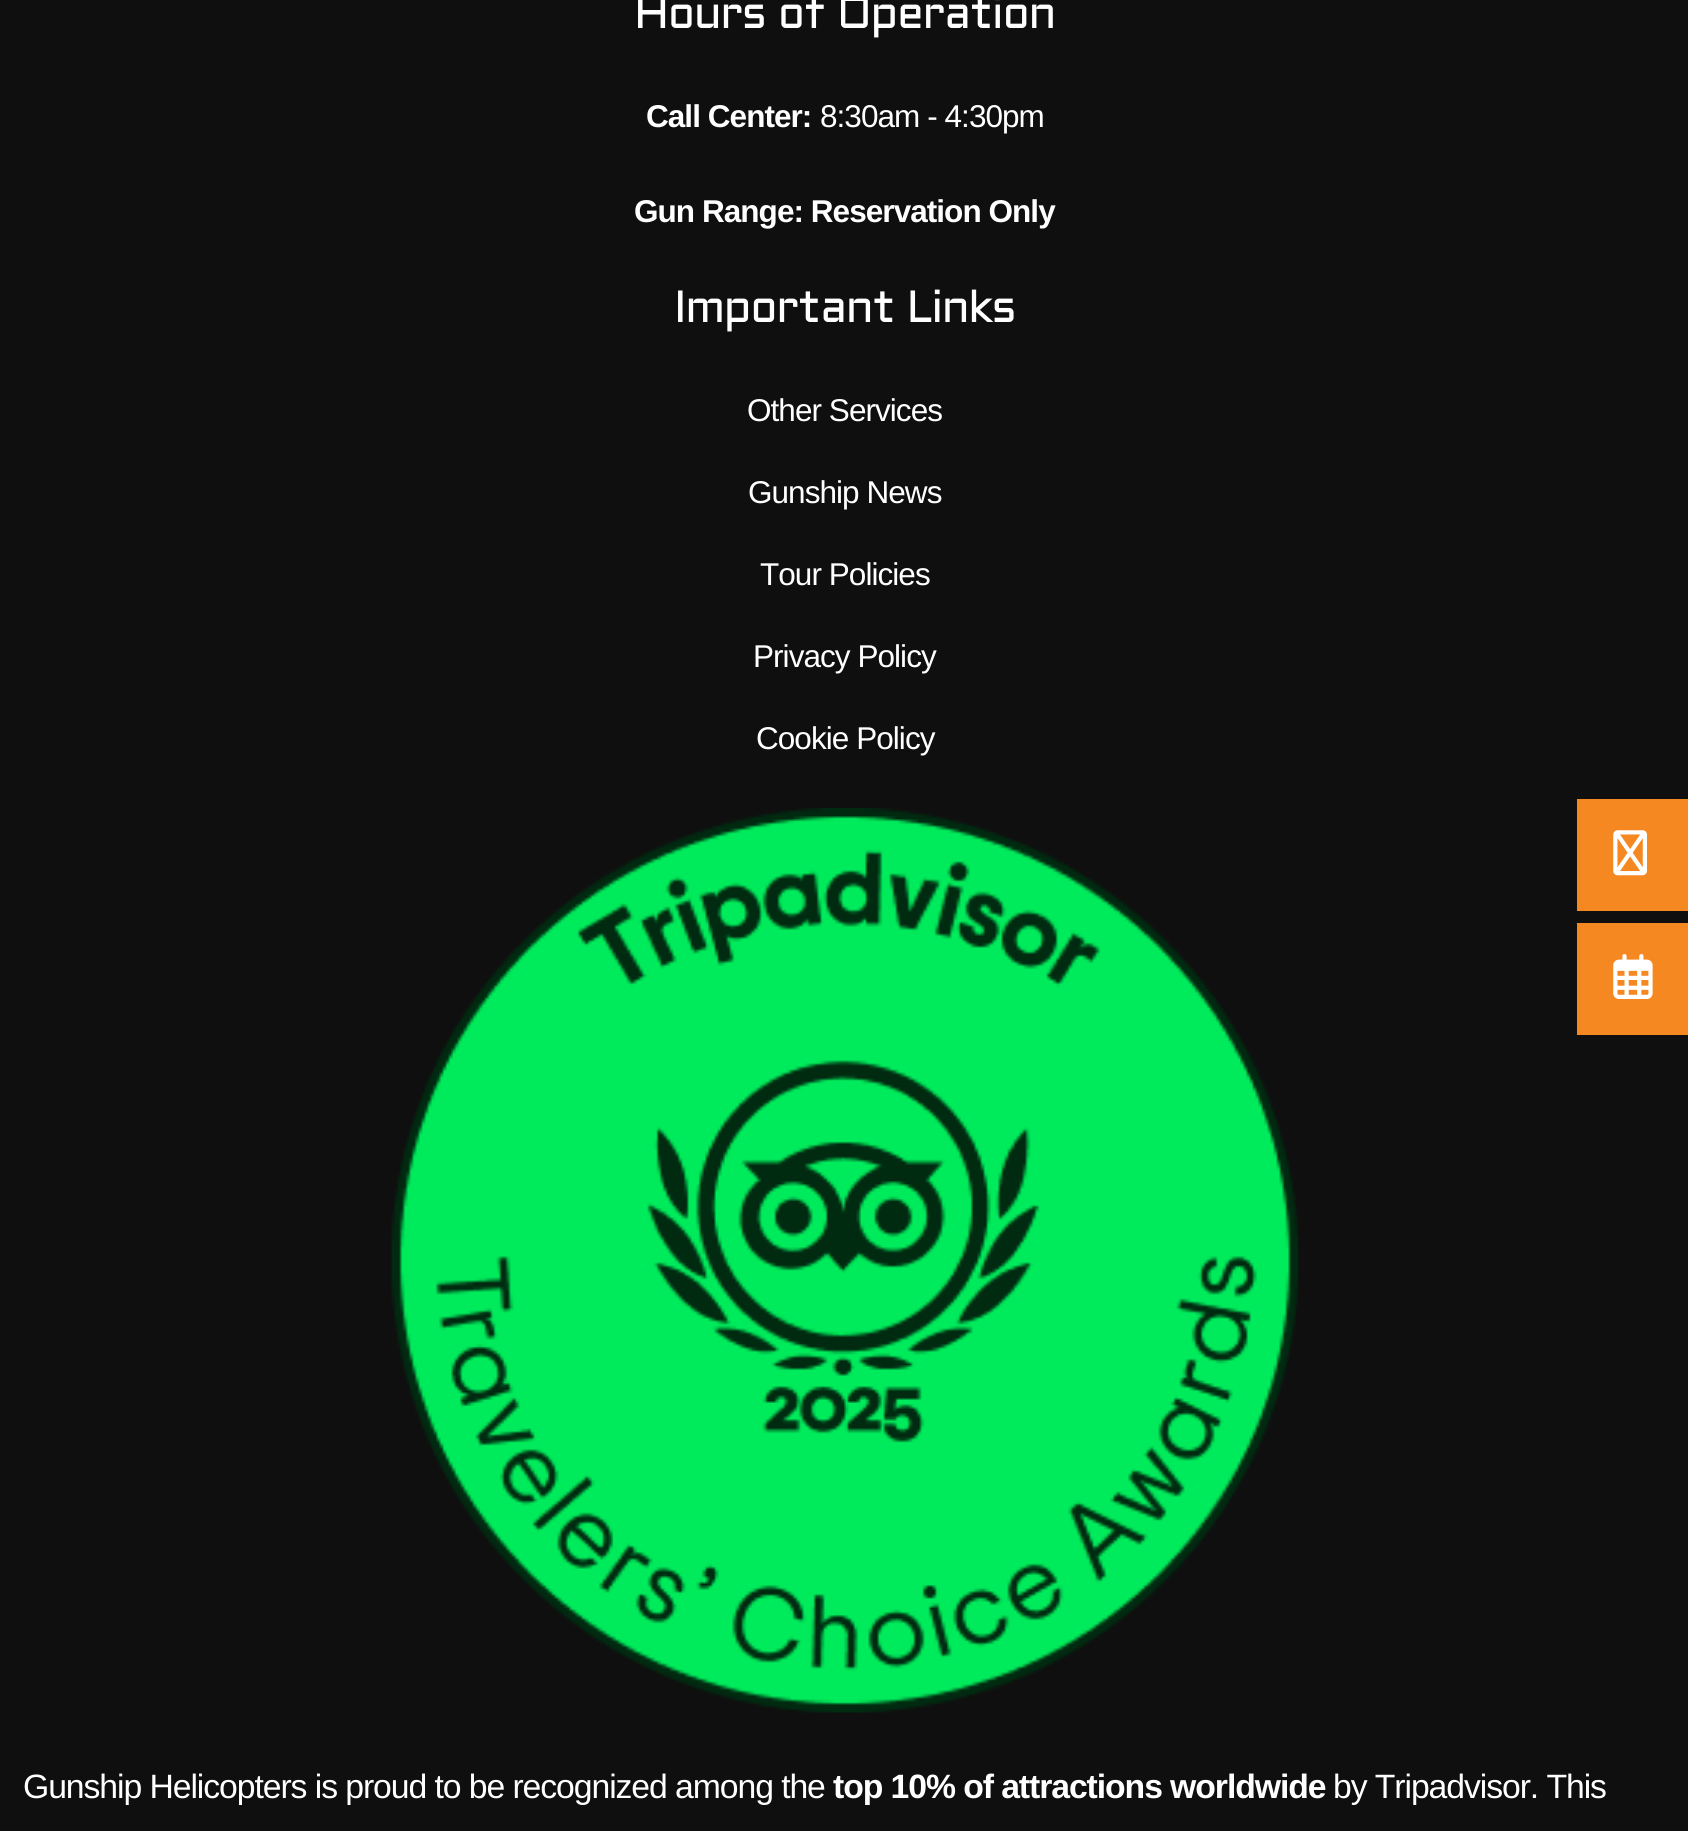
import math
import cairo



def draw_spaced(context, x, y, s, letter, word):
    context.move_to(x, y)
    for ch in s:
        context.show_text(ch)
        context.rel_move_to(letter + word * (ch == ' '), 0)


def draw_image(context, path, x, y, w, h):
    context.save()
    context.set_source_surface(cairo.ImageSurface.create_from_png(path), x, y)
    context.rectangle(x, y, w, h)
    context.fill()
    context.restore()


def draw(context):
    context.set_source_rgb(15 / 255, 15 / 255, 15 / 255)
    context.paint()
    draw_image(context, "images/1.png", 391, 808, 908, 905)
    context.set_source_rgb(246 / 255, 136 / 255, 33 / 255)
    context.rectangle(1577, 799, 111, 112)
    context.fill()
    draw_image(context, "images/2.png", 1613, 830, 34, 46)
    context.rectangle(1577, 923, 111, 112)
    context.fill()
    draw_image(context, "images/3.png", 1613, 954, 40, 45)
    context.select_font_face("Aldrich")
    context.set_font_size(45)
    context.set_source_rgb(1, 1, 1)
    draw_spaced(context, 634, 28, "Hours of Operation", -1.4, 0)
    context.select_font_face("Liberation Sans", cairo.FontSlant.NORMAL, cairo.FontWeight.BOLD)
    context.set_font_size(31.5)
    draw_spaced(context, 646, 127, "Call Center:", -0.95, 0)
    context.select_font_face("Liberation Sans")
    draw_spaced(context, 820, 127, "8:30am - 4:30pm", -0.95, 0)
    context.select_font_face("Liberation Sans", cairo.FontSlant.NORMAL, cairo.FontWeight.BOLD)
    draw_spaced(context, 634, 222, "Gun Range: Reservation Only", -0.95, 0)
    context.select_font_face("Aldrich")
    context.set_font_size(45)
    draw_spaced(context, 674, 322, "Important Links", -1.4, 0)
    context.select_font_face("Liberation Sans")
    context.set_font_size(31.5)
    draw_spaced(context, 747, 421, "Other Services", -0.95, 0)
    draw_spaced(context, 748, 503, "Gunship News", -0.95, 0)
    draw_spaced(context, 760, 585, "Tour Policies", -0.95, 0)
    draw_spaced(context, 753, 667, "Privacy Policy", -0.95, 0)
    draw_spaced(context, 756, 749, "Cookie Policy", -0.95, 0)
    context.set_font_size(33.75)
    draw_spaced(context, 23, 1798, "Gunship Helicopters is proud to be recognized among the", -1.08, 0)
    context.select_font_face("Liberation Sans", cairo.FontSlant.NORMAL, cairo.FontWeight.BOLD)
    draw_spaced(context, 833, 1798, "top 10% of attractions worldwide", -1.08, 0)
    context.select_font_face("Liberation Sans")
    draw_spaced(context, 1333, 1798, "by Tripadvisor. This", -1.08, 0)


surface = cairo.ImageSurface(cairo.Format.RGB24, 1688, 1831)
context = cairo.Context(surface)
options = cairo.FontOptions()
options.set_hint_metrics(cairo.HintMetrics.OFF)
options.set_hint_style(cairo.HintStyle.NONE)
context.set_font_options(options)
context.set_miter_limit(4)
draw(context)
surface.write_to_png("out.png")
